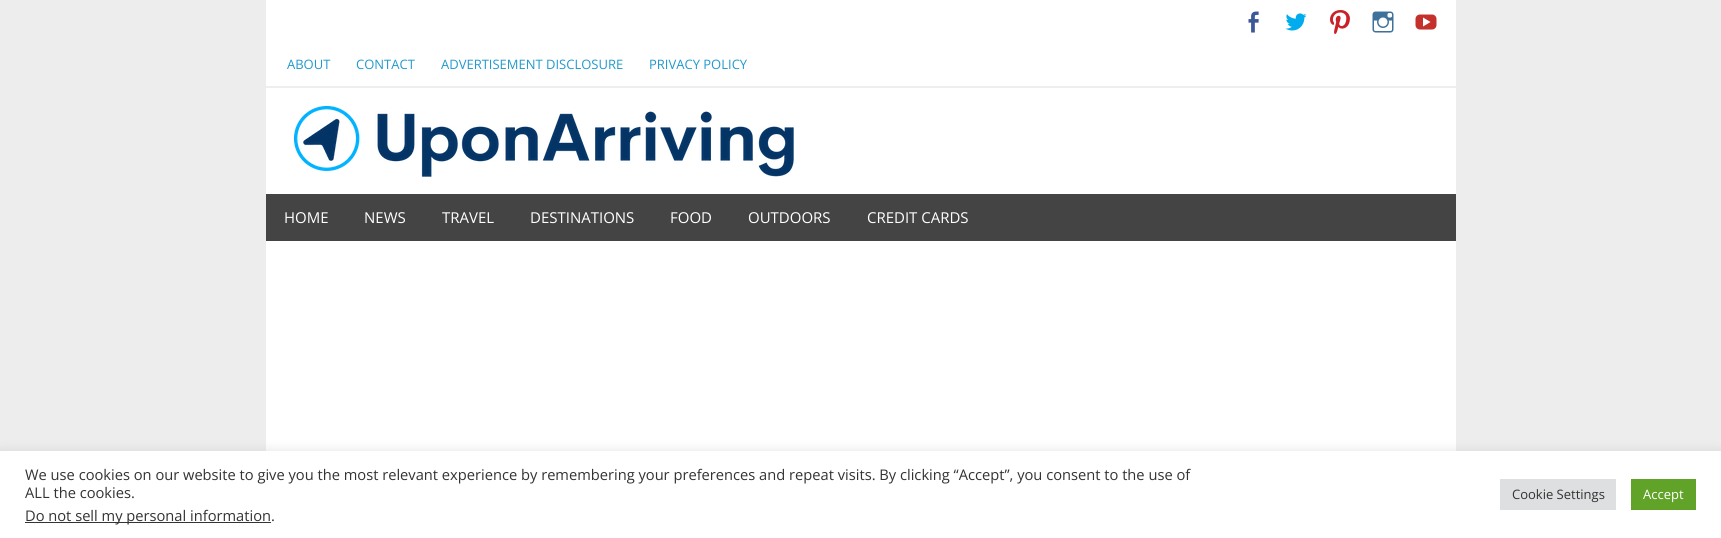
import math
import cairo



def rounded_rect(context, x, y, w, h, r):
    context.new_sub_path()
    for i, (u, v) in enumerate([(x + w - r, y + h - r), (x + r, y + h - r), (x + r, y + r), (x + w - r, y + r)]):
        context.arc(u, v, r, i * math.pi / 2, (i + 1) * math.pi / 2)
    context.close_path()


def draw_shadow(context, x, y, w, h, r, blur, alpha):
    context.push_group_with_content(cairo.Content.ALPHA)
    context.set_operator(cairo.Operator.SOURCE)
    for i in range(15, -16, -2):
        e = blur * i / 6
        if min(w, h) + 2 * e > 0:
            context.set_source_rgba(0, 0, 0, alpha * math.erfc((i - 1) / 8.5) / 2)
            rounded_rect(context, x - e, y - e, w + 2 * e, h + 2 * e, max(0, min(r + e + blur * .6, min(w, h) / 2 + e)))
            context.fill()
    context.mask(context.pop_group())


def draw_image(context, path, x, y, w, h):
    context.save()
    context.set_source_surface(cairo.ImageSurface.create_from_png(path), x, y)
    context.rectangle(x, y, w, h)
    context.fill()
    context.restore()


def draw(context):
    context.set_source_rgb(237 / 255, 237 / 255, 237 / 255)
    context.paint()
    context.set_source_rgb(1, 1, 1)
    context.rectangle(266, 0, 1190, 451)
    context.fill()
    context.set_source_rgb(238 / 255, 238 / 255, 238 / 255)
    context.rectangle(266, 86, 1190, 2)
    context.fill()
    draw_image(context, "images/1.png", 1248, 11, 11, 22)
    draw_image(context, "images/2.png", 1285, 13, 22, 18)
    draw_image(context, "images/3.png", 1330, 10, 20, 24)
    draw_image(context, "images/4.png", 1372, 11, 22, 22)
    draw_image(context, "images/5.png", 1415, 14, 22, 16)
    draw_image(context, "images/6.png", 294, 106, 500, 71)
    context.set_source_rgb(68 / 255, 68 / 255, 68 / 255)
    context.rectangle(266, 194, 1190, 47)
    context.fill()
    context.set_source_rgb(172 / 255, 171 / 255, 171 / 255)
    draw_shadow(context, 0, 450, 1721, 87, 0, 5, 0.3)
    context.set_source_rgb(1, 1, 1)
    context.rectangle(0, 451, 1721, 87)
    context.fill()
    context.set_source_rgb(51 / 255, 51 / 255, 51 / 255)
    context.rectangle(25, 522, 246, 1)
    context.fill()
    context.set_source_rgb(222 / 255, 223 / 255, 224 / 255)
    context.rectangle(1500, 479, 116, 31)
    context.fill()
    context.set_source_rgb(97 / 255, 162 / 255, 41 / 255)
    context.rectangle(1631, 479, 65, 31)
    context.fill()
    context.select_font_face("Open Sans")
    context.set_font_size(13)
    context.set_source_rgb(34 / 255, 153 / 255, 204 / 255)
    context.move_to(287, 69)
    context.show_text("ABOUT")
    context.move_to(356, 69)
    context.show_text("CONTACT")
    context.move_to(441, 69)
    context.show_text("ADVERTISEMENT DISCLOSURE")
    context.move_to(649, 69)
    context.show_text("PRIVACY POLICY")
    context.set_font_size(15)
    context.set_source_rgb(1, 1, 1)
    context.move_to(284, 223)
    context.show_text("HOME")
    context.move_to(364, 223)
    context.show_text("NEWS")
    context.move_to(442, 223)
    context.show_text("TRAVEL")
    context.move_to(530, 223)
    context.show_text("DESTINATIONS")
    context.move_to(670, 223)
    context.show_text("FOOD")
    context.move_to(748, 223)
    context.show_text("OUTDOORS")
    context.move_to(867, 223)
    context.show_text("CREDIT CARDS")
    context.set_font_size(14.67)
    context.set_source_rgb(51 / 255, 51 / 255, 51 / 255)
    context.move_to(25, 480)
    context.show_text("We use cookies on our website to give you the most relevant experience by remembering your preferences and repeat visits. By clicking “Accept”, you consent to the use of")
    context.move_to(25, 498)
    context.show_text("ALL the cookies.")
    context.move_to(25, 521)
    context.show_text("Do not sell my personal information.")
    context.set_font_size(13)
    context.move_to(1512, 499)
    context.show_text("Cookie Settings")
    context.set_source_rgb(1, 1, 1)
    context.move_to(1643, 499)
    context.show_text("Accept")


surface = cairo.ImageSurface(cairo.Format.RGB24, 1721, 538)
context = cairo.Context(surface)
options = cairo.FontOptions()
options.set_hint_metrics(cairo.HintMetrics.OFF)
options.set_hint_style(cairo.HintStyle.NONE)
context.set_font_options(options)
context.set_miter_limit(4)
draw(context)
surface.write_to_png("out.png")
